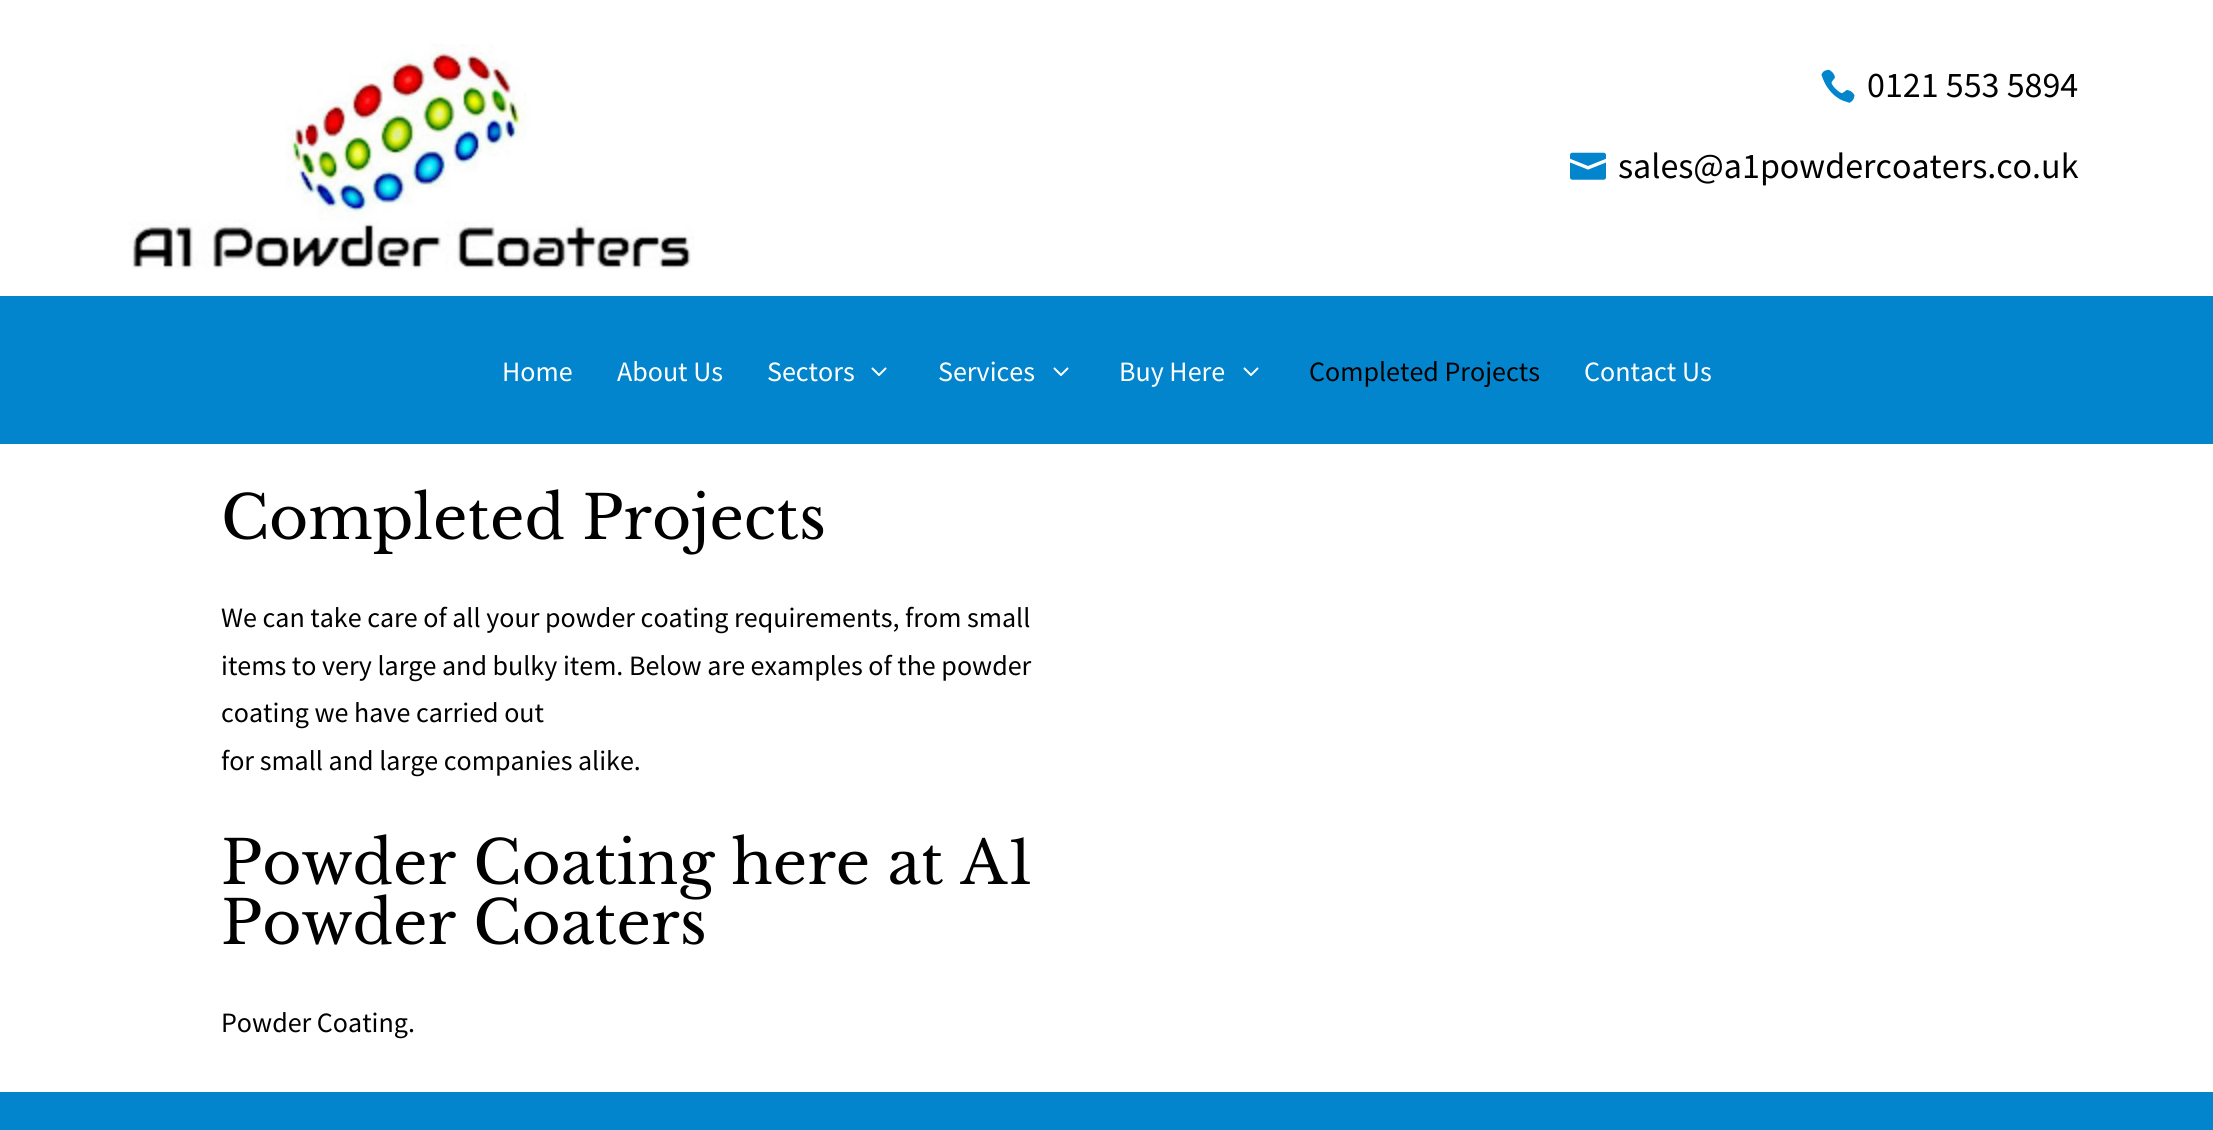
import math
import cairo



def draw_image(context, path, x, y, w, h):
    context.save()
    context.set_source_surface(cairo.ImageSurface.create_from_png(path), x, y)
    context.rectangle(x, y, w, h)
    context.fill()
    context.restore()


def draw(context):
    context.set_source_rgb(1, 1, 1)
    context.paint()
    draw_image(context, "images/1.png", 129, 44, 565, 225)
    draw_image(context, "images/2.png", 1821, 69, 34, 34)
    draw_image(context, "images/3.png", 1570, 152, 36, 28)
    context.set_source_rgb(3 / 255, 133 / 255, 206 / 255)
    context.rectangle(0, 296, 2213, 148)
    context.fill()
    draw_image(context, "images/4.png", 871, 367, 16, 9)
    draw_image(context, "images/4.png", 1053, 367, 16, 9)
    draw_image(context, "images/4.png", 1243, 367, 16, 9)
    context.rectangle(0, 1092, 2213, 38)
    context.fill()
    context.select_font_face("Source Sans Pro")
    context.set_font_size(36)
    context.set_source_rgb(0, 0, 0)
    context.move_to(1867, 97)
    context.show_text("0121 553 5894")
    context.move_to(1618, 178)
    context.show_text("sales@a1powdercoaters.co.uk")
    context.set_font_size(28)
    context.set_source_rgb(1, 1, 1)
    context.move_to(502, 381)
    context.show_text("Home")
    context.move_to(617, 381)
    context.show_text("About Us")
    context.move_to(767, 381)
    context.show_text("Sectors")
    context.move_to(938, 381)
    context.show_text("Services")
    context.move_to(1119, 381)
    context.show_text("Buy Here")
    context.set_source_rgb(0, 0, 0)
    context.move_to(1309, 381)
    context.show_text("Completed Projects")
    context.set_source_rgb(1, 1, 1)
    context.move_to(1584, 381)
    context.show_text("Contact Us")
    context.select_font_face("Libre Baskerville")
    context.set_font_size(60)
    context.set_source_rgb(0, 0, 0)
    context.move_to(221, 539)
    context.show_text("Completed Projects")
    context.select_font_face("Source Sans Pro")
    context.set_font_size(28)
    context.move_to(221, 627)
    context.show_text("We can take care of all your powder coating requirements, from small")
    context.move_to(221, 675)
    context.show_text("items to very large and bulky item. Below are examples of the powder")
    context.move_to(221, 722)
    context.show_text("coating we have carried out")
    context.move_to(221, 770)
    context.show_text("for small and large companies alike.")
    context.select_font_face("Libre Baskerville")
    context.set_font_size(60)
    context.move_to(221, 884)
    context.show_text("Powder Coating here at A1")
    context.move_to(221, 944)
    context.show_text("Powder Coaters")
    context.select_font_face("Source Sans Pro")
    context.set_font_size(28)
    context.move_to(221, 1032)
    context.show_text("Powder Coating.")


surface = cairo.ImageSurface(cairo.Format.RGB24, 2213, 1130)
context = cairo.Context(surface)
options = cairo.FontOptions()
options.set_hint_metrics(cairo.HintMetrics.OFF)
options.set_hint_style(cairo.HintStyle.NONE)
context.set_font_options(options)
context.set_miter_limit(4)
draw(context)
surface.write_to_png("out.png")
